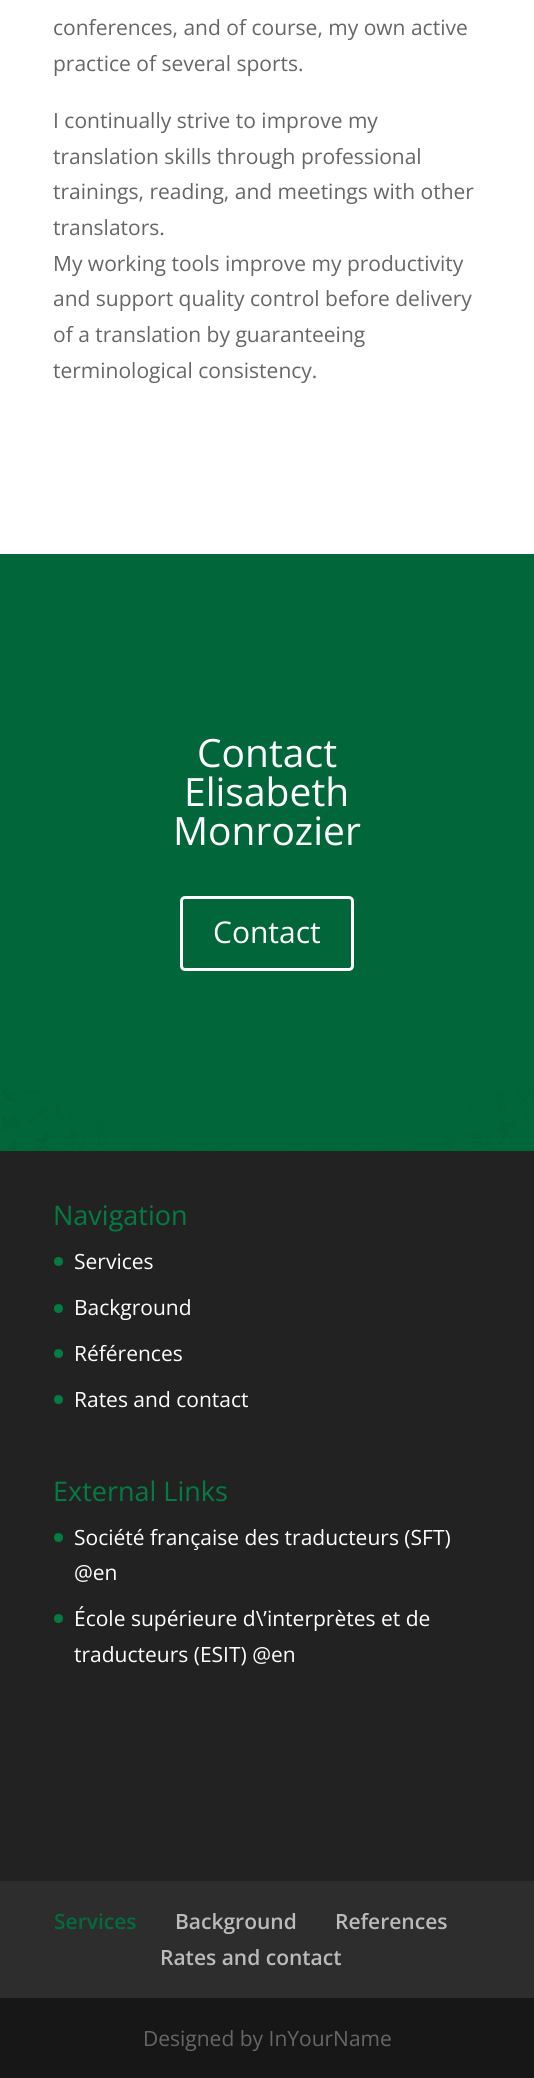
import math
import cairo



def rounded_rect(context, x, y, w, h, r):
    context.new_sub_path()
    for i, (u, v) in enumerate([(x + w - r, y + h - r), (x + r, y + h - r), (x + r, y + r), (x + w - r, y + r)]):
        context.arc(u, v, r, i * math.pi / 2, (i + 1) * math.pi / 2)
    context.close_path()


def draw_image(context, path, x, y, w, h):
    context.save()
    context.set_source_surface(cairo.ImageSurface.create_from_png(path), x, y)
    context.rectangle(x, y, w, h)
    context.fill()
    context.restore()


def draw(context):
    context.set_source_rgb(34 / 255, 34 / 255, 34 / 255)
    context.paint()
    context.set_source_rgb(1, 1, 1)
    context.rectangle(0, 0, 534, 554)
    context.fill()
    context.set_source_rgb(1 / 255, 102 / 255, 58 / 255)
    context.rectangle(0, 554, 534, 597)
    context.fill()
    draw_image(context, "images/1.png", 2, 1090, 531, 60)
    rounded_rect(context, 181.5, 897.5, 171, 72, 3.5)
    context.set_source_rgb(1, 1, 1)
    context.set_line_width(3)
    context.stroke()
    context.set_source_rgb(3 / 255, 124 / 255, 65 / 255)
    context.arc(58.5, 1261.5, 4.5, 0, 2 * math.pi)
    context.fill()
    context.arc(58.5, 1308.5, 4.5, 0, 2 * math.pi)
    context.fill()
    context.arc(58.5, 1353.5, 4.5, 0, 2 * math.pi)
    context.fill()
    context.arc(58.5, 1399.5, 4.5, 0, 2 * math.pi)
    context.fill()
    context.arc(58.5, 1537.5, 4.5, 0, 2 * math.pi)
    context.fill()
    context.arc(58.5, 1618.5, 4.5, 0, 2 * math.pi)
    context.fill()
    context.set_source_rgb(45 / 255, 45 / 255, 45 / 255)
    context.rectangle(0, 1881, 534, 117)
    context.fill()
    context.set_source_rgb(23 / 255, 23 / 255, 23 / 255)
    context.rectangle(0, 1998, 534, 80)
    context.fill()
    context.select_font_face("Open Sans")
    context.set_font_size(21)
    context.set_source_rgb(102 / 255, 102 / 255, 102 / 255)
    context.move_to(53, 35)
    context.show_text("conferences, and of course, my own active")
    context.move_to(53, 71)
    context.show_text("practice of several sports.")
    context.move_to(53, 128)
    context.show_text("I continually strive to improve my")
    context.move_to(53, 164)
    context.show_text("translation skills through professional")
    context.move_to(53, 199)
    context.show_text("trainings, reading, and meetings with other")
    context.move_to(53, 235)
    context.show_text("translators.")
    context.move_to(53, 271)
    context.show_text("My working tools improve my productivity")
    context.move_to(53, 306)
    context.show_text("and support quality control before delivery")
    context.move_to(53, 342)
    context.show_text("of a translation by guaranteeing")
    context.move_to(53, 378)
    context.show_text("terminological consistency.")
    context.set_font_size(39)
    context.set_source_rgb(1, 1, 1)
    context.move_to(197, 767)
    context.show_text("Contact")
    context.move_to(184, 806)
    context.show_text("Elisabeth")
    context.move_to(173, 845)
    context.show_text("Monrozier")
    context.set_font_size(30)
    context.move_to(213, 943)
    context.show_text("Contact")
    context.set_font_size(27)
    context.set_source_rgb(3 / 255, 124 / 255, 65 / 255)
    context.move_to(53, 1225)
    context.show_text("Navigation")
    context.set_font_size(21)
    context.set_source_rgb(1, 1, 1)
    context.move_to(74, 1269)
    context.show_text("Services")
    context.move_to(74, 1315)
    context.show_text("Background")
    context.move_to(74, 1361)
    context.show_text("Références")
    context.move_to(74, 1407)
    context.show_text("Rates and contact")
    context.set_font_size(27)
    context.set_source_rgb(3 / 255, 124 / 255, 65 / 255)
    context.move_to(53, 1501)
    context.show_text("External Links")
    context.set_font_size(21)
    context.set_source_rgb(1, 1, 1)
    context.move_to(74, 1545)
    context.show_text("Société française des traducteurs (SFT)")
    context.move_to(74, 1580)
    context.show_text("@en")
    context.move_to(74, 1626)
    context.show_text("École supérieure d\\’interprètes et de")
    context.move_to(74, 1662)
    context.show_text("traducteurs (ESIT) @en")
    context.select_font_face("Open Sans SemiBold")
    context.set_source_rgb(4 / 255, 107 / 255, 62 / 255)
    context.move_to(54, 1929)
    context.show_text("Services")
    context.set_source_rgb(187 / 255, 187 / 255, 187 / 255)
    context.move_to(175, 1929)
    context.show_text("Background")
    context.move_to(335, 1929)
    context.show_text("References")
    context.move_to(160, 1965)
    context.show_text("Rates and contact")
    context.select_font_face("Open Sans")
    context.set_source_rgb(102 / 255, 102 / 255, 102 / 255)
    context.move_to(143, 2046)
    context.show_text("Designed by InYourName")


surface = cairo.ImageSurface(cairo.Format.RGB24, 534, 2078)
context = cairo.Context(surface)
options = cairo.FontOptions()
options.set_hint_metrics(cairo.HintMetrics.OFF)
options.set_hint_style(cairo.HintStyle.NONE)
context.set_font_options(options)
context.set_miter_limit(4)
draw(context)
surface.write_to_png("out.png")
